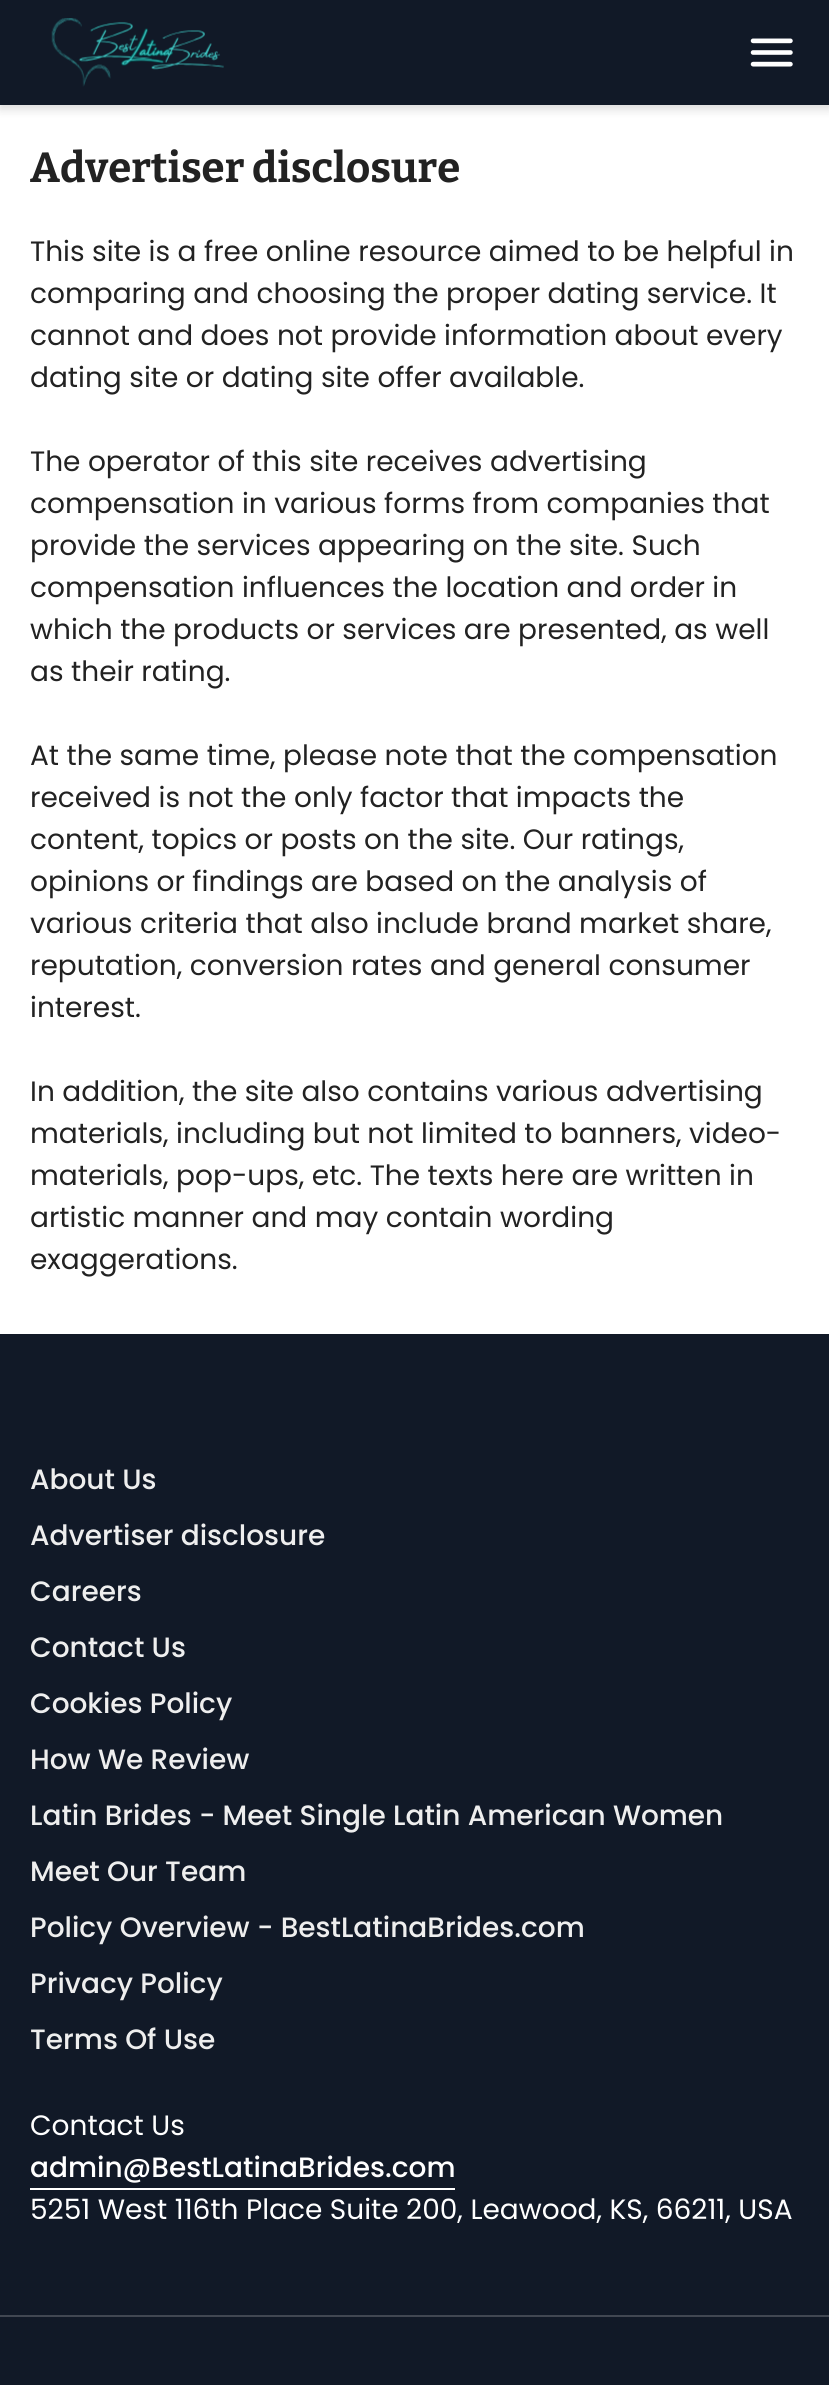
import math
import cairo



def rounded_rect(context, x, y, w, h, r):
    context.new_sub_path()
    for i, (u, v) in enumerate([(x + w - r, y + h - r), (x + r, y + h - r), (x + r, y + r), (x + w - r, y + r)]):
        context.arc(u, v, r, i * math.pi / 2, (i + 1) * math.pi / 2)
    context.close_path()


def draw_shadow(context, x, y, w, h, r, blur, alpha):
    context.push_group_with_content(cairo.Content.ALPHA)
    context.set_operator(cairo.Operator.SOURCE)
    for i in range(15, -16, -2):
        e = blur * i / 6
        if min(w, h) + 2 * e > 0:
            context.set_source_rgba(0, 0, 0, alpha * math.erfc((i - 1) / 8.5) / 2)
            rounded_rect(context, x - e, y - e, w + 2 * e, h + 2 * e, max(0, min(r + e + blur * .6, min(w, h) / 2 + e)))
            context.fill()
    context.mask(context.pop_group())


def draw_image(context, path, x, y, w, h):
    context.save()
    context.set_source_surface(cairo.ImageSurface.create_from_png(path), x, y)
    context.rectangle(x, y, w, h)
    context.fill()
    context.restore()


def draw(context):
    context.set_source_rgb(1, 1, 1)
    context.paint()
    context.set_source_rgb(0, 0, 0)
    draw_shadow(context, 0, 4, 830, 105, 0, 5, 0.15)
    context.set_source_rgb(17 / 255, 25 / 255, 39 / 255)
    context.rectangle(0, 0, 829, 105)
    context.fill()
    draw_image(context, "images/1.png", 51, 18, 173, 69)
    draw_image(context, "images/2.png", 750, 38, 43, 29)
    context.rectangle(0, 1334, 829, 1051)
    context.fill()
    context.set_source_rgb(1, 1, 1)
    context.rectangle(30, 2188, 425, 2)
    context.fill()
    context.set_source_rgb(65 / 255, 71 / 255, 82 / 255)
    context.rectangle(0, 2315, 829, 2)
    context.fill()
    context.select_font_face("Bitter", cairo.FontSlant.NORMAL, cairo.FontWeight.BOLD)
    context.set_font_size(42)
    context.set_source_rgb(34 / 255, 34 / 255, 34 / 255)
    context.move_to(30, 182)
    context.show_text("Advertiser disclosure")
    context.select_font_face("Poppins")
    context.set_font_size(28)
    context.move_to(30, 261)
    context.show_text("This site is a free online resource aimed to be helpful in")
    context.move_to(30, 303)
    context.show_text("comparing and choosing the proper dating service. It")
    context.move_to(30, 345)
    context.show_text("cannot and does not provide information about every")
    context.move_to(30, 387)
    context.show_text("dating site or dating site offer available.")
    context.move_to(30, 471)
    context.show_text("The operator of this site receives advertising")
    context.move_to(30, 513)
    context.show_text("compensation in various forms from companies that")
    context.move_to(30, 555)
    context.show_text("provide the services appearing on the site. Such")
    context.move_to(30, 597)
    context.show_text("compensation influences the location and order in")
    context.move_to(30, 639)
    context.show_text("which the products or services are presented, as well")
    context.move_to(30, 681)
    context.show_text("as their rating.")
    context.move_to(30, 765)
    context.show_text("At the same time, please note that the compensation")
    context.move_to(30, 807)
    context.show_text("received is not the only factor that impacts the")
    context.move_to(30, 849)
    context.show_text("content, topics or posts on the site. Our ratings,")
    context.move_to(30, 891)
    context.show_text("opinions or findings are based on the analysis of")
    context.move_to(30, 933)
    context.show_text("various criteria that also include brand market share,")
    context.move_to(30, 975)
    context.show_text("reputation, conversion rates and general consumer")
    context.move_to(30, 1017)
    context.show_text("interest.")
    context.move_to(30, 1101)
    context.show_text("In addition, the site also contains various advertising")
    context.move_to(30, 1143)
    context.show_text("materials, including but not limited to banners, video-")
    context.move_to(30, 1185)
    context.show_text("materials, pop-ups, etc. The texts here are written in")
    context.move_to(30, 1227)
    context.show_text("artistic manner and may contain wording")
    context.move_to(30, 1269)
    context.show_text("exaggerations.")
    context.select_font_face("Poppins Medium")
    context.set_source_rgb(238 / 255, 238 / 255, 238 / 255)
    context.move_to(30, 1489)
    context.show_text("About Us")
    context.move_to(30, 1545)
    context.show_text("Advertiser disclosure")
    context.move_to(30, 1601)
    context.show_text("Careers")
    context.move_to(30, 1657)
    context.show_text("Contact Us")
    context.move_to(30, 1713)
    context.show_text("Cookies Policy")
    context.move_to(30, 1769)
    context.show_text("How We Review")
    context.move_to(30, 1825)
    context.show_text("Latin Brides - Meet Single Latin American Women")
    context.move_to(30, 1881)
    context.show_text("Meet Our Team")
    context.move_to(30, 1937)
    context.show_text("Policy Overview - BestLatinaBrides.com")
    context.move_to(30, 1993)
    context.show_text("Privacy Policy")
    context.move_to(30, 2049)
    context.show_text("Terms Of Use")
    context.select_font_face("Poppins")
    context.set_source_rgb(1, 1, 1)
    context.move_to(30, 2135)
    context.show_text("Contact Us")
    context.select_font_face("Poppins Medium")
    context.move_to(30, 2177)
    context.show_text("admin@BestLatinaBrides.com")
    context.select_font_face("Poppins")
    context.move_to(30, 2219)
    context.show_text("5251 West 116th Place Suite 200, Leawood, KS, 66211, USA")


surface = cairo.ImageSurface(cairo.Format.RGB24, 829, 2385)
context = cairo.Context(surface)
options = cairo.FontOptions()
options.set_hint_metrics(cairo.HintMetrics.OFF)
options.set_hint_style(cairo.HintStyle.NONE)
context.set_font_options(options)
context.set_miter_limit(4)
draw(context)
surface.write_to_png("out.png")
